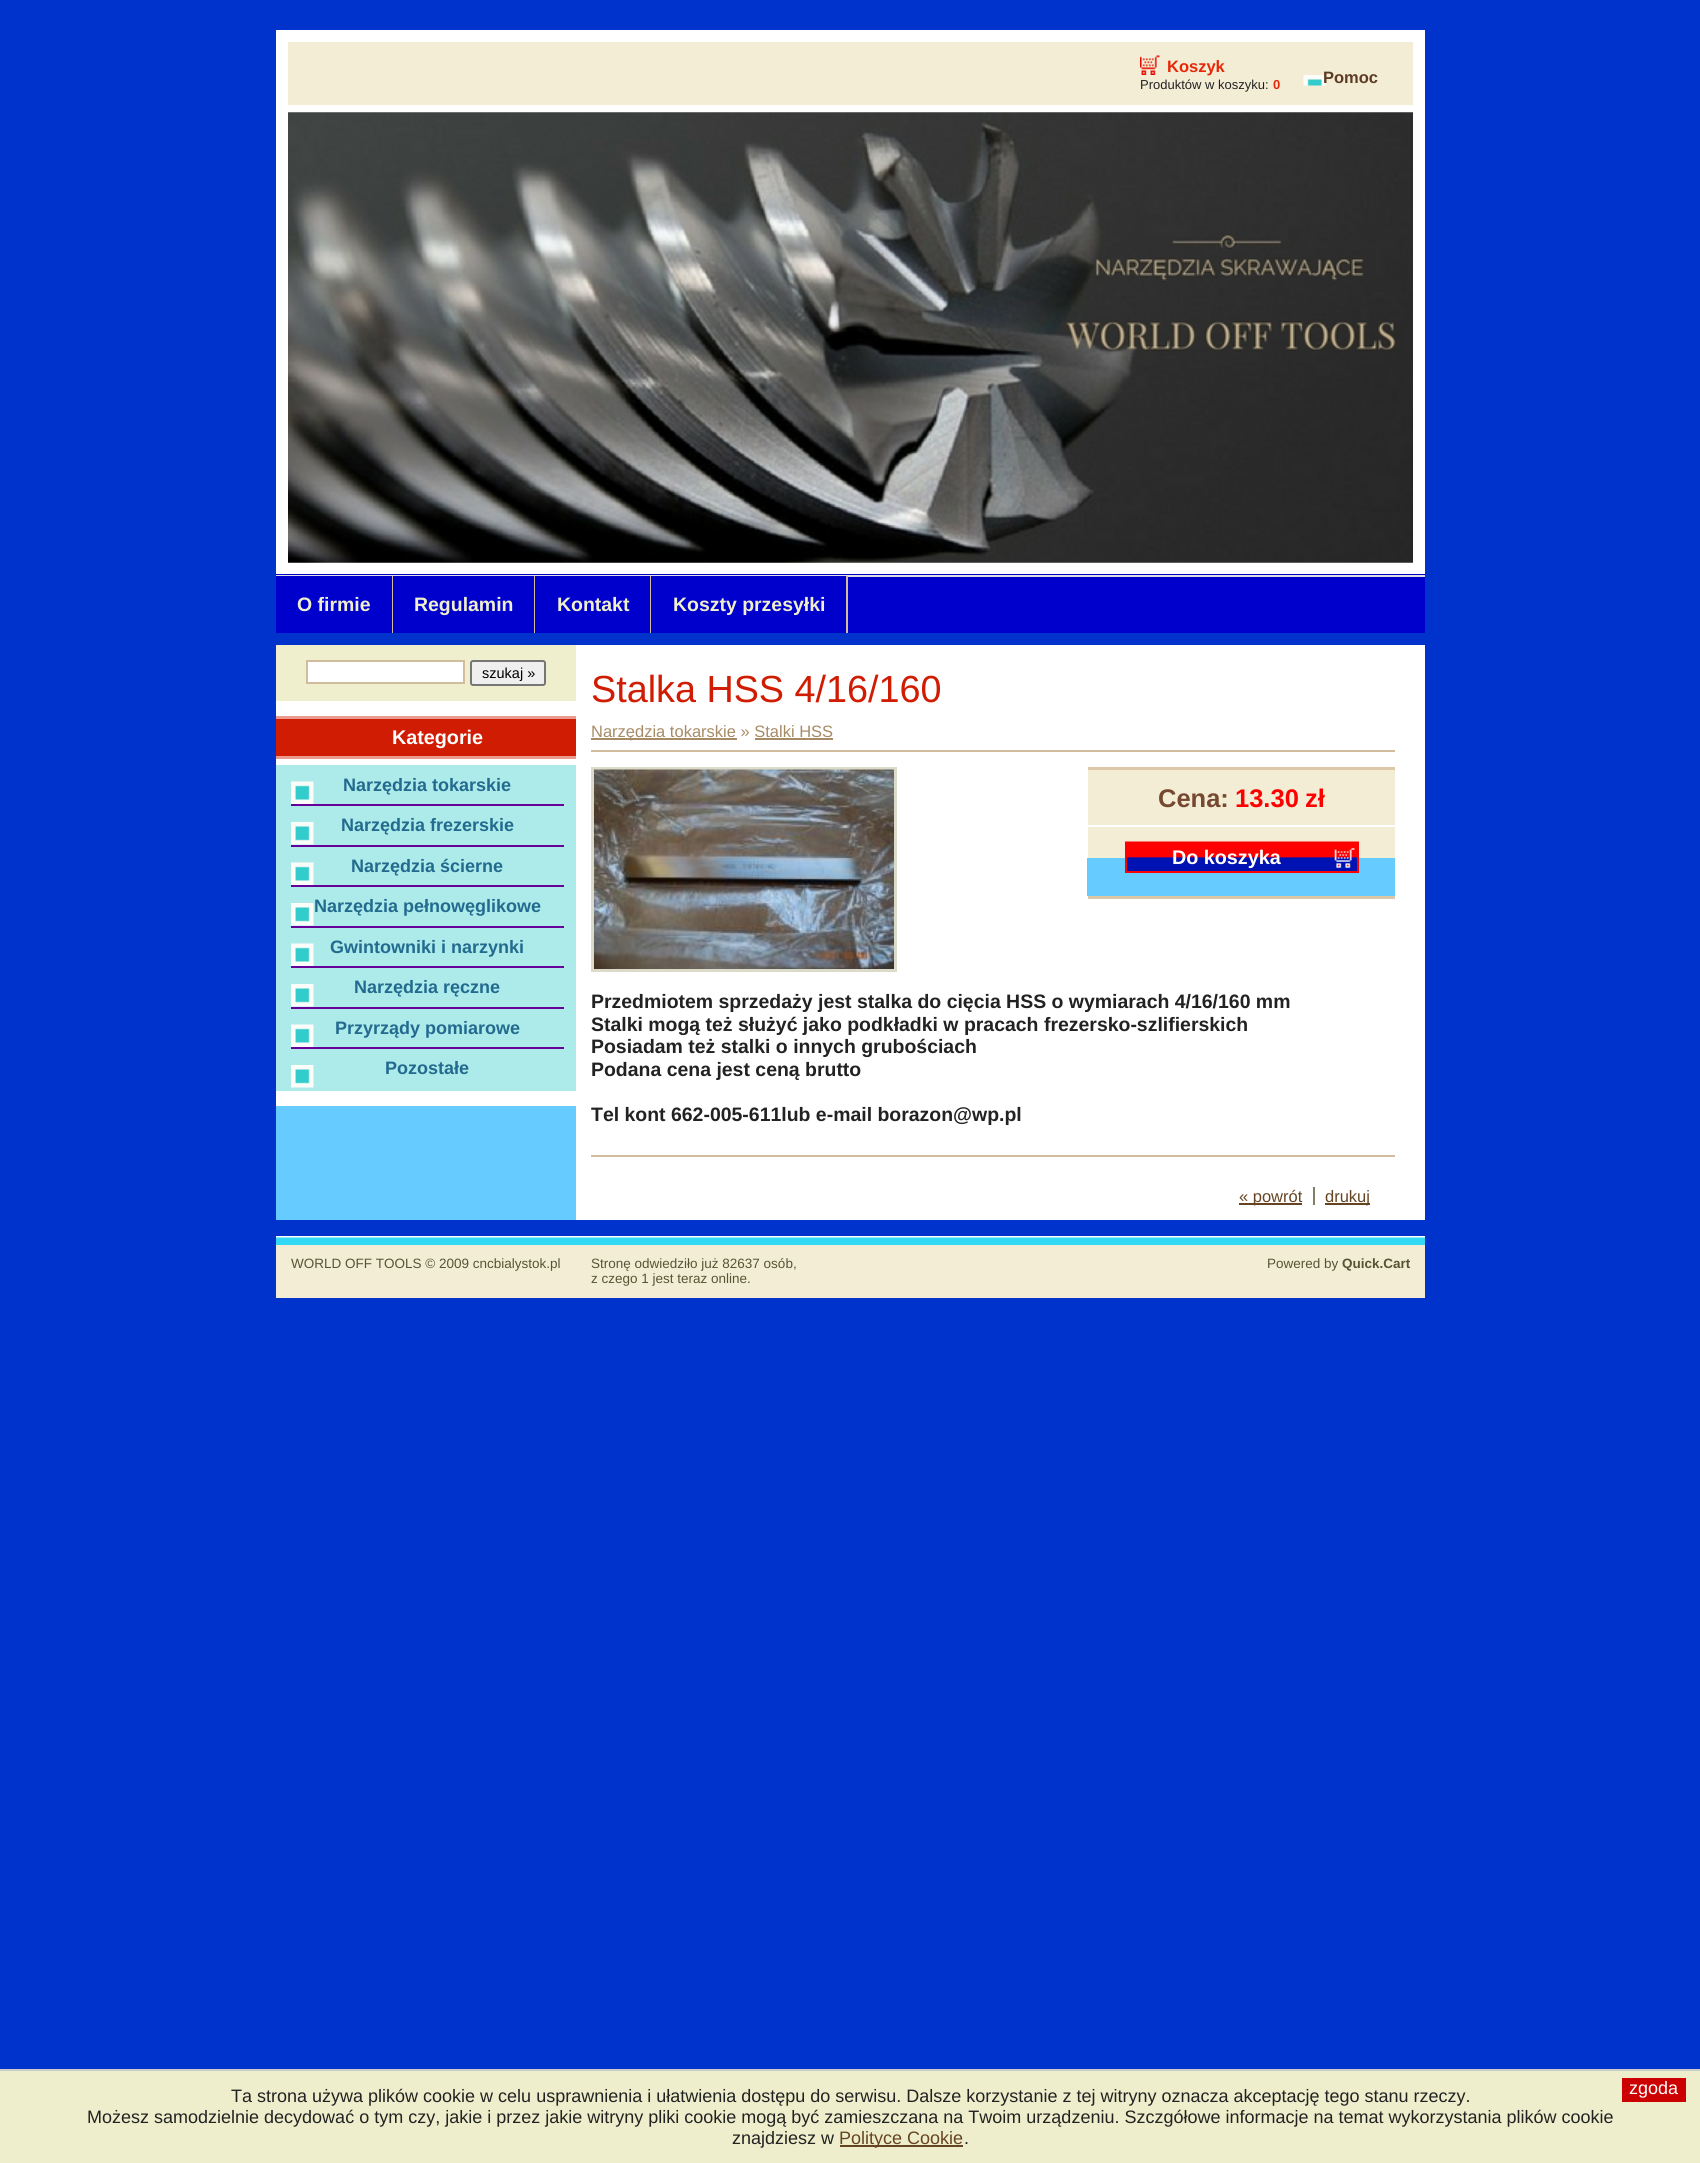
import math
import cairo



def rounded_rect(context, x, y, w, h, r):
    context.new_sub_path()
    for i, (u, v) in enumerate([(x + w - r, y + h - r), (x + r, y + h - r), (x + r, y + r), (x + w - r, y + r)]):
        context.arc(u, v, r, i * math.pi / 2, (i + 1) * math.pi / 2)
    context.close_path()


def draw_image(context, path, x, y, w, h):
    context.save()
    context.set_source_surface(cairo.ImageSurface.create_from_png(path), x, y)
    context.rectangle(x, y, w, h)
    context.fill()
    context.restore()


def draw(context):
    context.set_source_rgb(0, 51 / 255, 204 / 255)
    context.paint()
    context.set_source_rgb(1, 1, 1)
    context.rectangle(276, 30, 1149, 544)
    context.fill()
    context.set_source_rgb(243 / 255, 237 / 255, 214 / 255)
    context.rectangle(288, 42, 1125, 63)
    context.fill()
    draw_image(context, "images/1.png", 1140, 55, 20, 20)
    draw_image(context, "images/2.png", 1303, 75, 23, 11)
    draw_image(context, "images/3.png", 288, 112, 1125, 451)
    draw_image(context, "images/4.png", 288, 112, 1125, 451)
    context.set_source_rgb(0, 0, 204 / 255)
    context.rectangle(276, 574, 1149, 59)
    context.fill()
    context.set_source_rgb(221 / 255, 221 / 255, 221 / 255)
    context.rectangle(276, 575, 1149, 2)
    context.fill()
    context.set_source_rgb(0, 0, 204 / 255)
    context.rectangle(276, 576, 258, 1)
    context.fill()
    context.set_source_rgb(209 / 255, 189 / 255, 157 / 255)
    context.rectangle(392, 576, 1, 57)
    context.fill()
    context.rectangle(534, 576, 1, 57)
    context.fill()
    context.set_source_rgb(0, 0, 204 / 255)
    context.rectangle(535, 576, 115, 1)
    context.fill()
    context.set_source_rgb(209 / 255, 189 / 255, 157 / 255)
    context.rectangle(650, 576, 1, 57)
    context.fill()
    context.set_source_rgb(0, 0, 204 / 255)
    context.rectangle(651, 576, 195, 1)
    context.fill()
    context.set_source_rgb(209 / 255, 189 / 255, 157 / 255)
    context.rectangle(846, 576, 2, 57)
    context.fill()
    context.set_source_rgb(1, 1, 1)
    context.rectangle(576, 645, 849, 575)
    context.fill()
    context.set_source_rgb(102 / 255, 204 / 255, 1)
    context.rectangle(276, 1106, 300, 114)
    context.fill()
    context.set_source_rgb(1, 1, 1)
    context.rectangle(276, 701, 300, 405)
    context.fill()
    context.set_source_rgb(240 / 255, 239 / 255, 205 / 255)
    context.rectangle(276, 645, 300, 56)
    context.fill()
    context.set_source_rgb(1, 1, 1)
    context.rectangle(307, 661, 157, 22)
    context.fill_preserve()
    context.set_source_rgb(209 / 255, 189 / 255, 157 / 255)
    context.stroke()
    context.set_source_rgb(239 / 255, 239 / 255, 239 / 255)
    rounded_rect(context, 471, 661, 74, 24, 2)
    context.fill_preserve()
    context.set_source_rgb(118 / 255, 118 / 255, 118 / 255)
    context.stroke()
    context.set_source_rgb(208 / 255, 28 / 255, 2 / 255)
    context.rectangle(276, 719, 300, 37)
    context.fill()
    context.set_source_rgb(234 / 255, 154 / 255, 142 / 255)
    context.rectangle(276, 716, 300, 3)
    context.fill()
    context.rectangle(276, 756, 300, 3)
    context.fill()
    context.set_source_rgb(173 / 255, 234 / 255, 234 / 255)
    context.rectangle(276, 765, 300, 326)
    context.fill()
    draw_image(context, "images/5.png", 291, 781, 23, 23)
    draw_image(context, "images/6.png", 291, 822, 23, 23)
    context.set_source_rgb(102 / 255, 0, 153 / 255)
    context.rectangle(291, 804, 273, 2)
    context.fill()
    draw_image(context, "images/5.png", 291, 862, 23, 23)
    context.rectangle(291, 845, 273, 2)
    context.fill()
    draw_image(context, "images/6.png", 291, 903, 23, 23)
    context.rectangle(291, 885, 273, 2)
    context.fill()
    draw_image(context, "images/5.png", 291, 943, 23, 23)
    context.rectangle(291, 926, 273, 2)
    context.fill()
    draw_image(context, "images/6.png", 291, 984, 23, 23)
    context.rectangle(291, 966, 273, 2)
    context.fill()
    draw_image(context, "images/5.png", 291, 1024, 23, 23)
    context.rectangle(291, 1007, 273, 2)
    context.fill()
    draw_image(context, "images/6.png", 291, 1065, 23, 23)
    context.rectangle(291, 1047, 273, 2)
    context.fill()
    context.set_source_rgb(209 / 255, 189 / 255, 157 / 255)
    context.rectangle(591, 1155, 804, 2)
    context.fill()
    context.rectangle(591, 750, 804, 2)
    context.fill()
    context.set_source_rgb(167 / 255, 139 / 255, 101 / 255)
    context.rectangle(591, 738, 146, 2)
    context.fill()
    context.rectangle(755, 738, 78, 2)
    context.fill()
    context.rectangle(592.5, 768.5, 303, 202)
    context.set_source_rgb(220 / 255, 218 / 255, 201 / 255)
    context.set_line_width(3)
    context.stroke()
    draw_image(context, "images/7.png", 594, 769, 300, 200)
    context.set_source_rgb(243 / 255, 237 / 255, 214 / 255)
    context.rectangle(1088, 770, 307, 88)
    context.fill()
    context.set_source_rgb(102 / 255, 204 / 255, 1)
    context.rectangle(1087, 858, 308, 38)
    context.fill()
    context.set_source_rgb(220 / 255, 199 / 255, 167 / 255)
    context.rectangle(1088, 767, 307, 3)
    context.fill()
    context.rectangle(1088, 896, 307, 3)
    context.fill()
    context.set_source_rgb(1, 1, 1)
    context.rectangle(1088, 825, 307, 2)
    context.fill()
    draw_image(context, "images/8.png", 1125, 841, 234, 30)
    context.rectangle(1126, 843, 232, 29)
    context.set_source_rgb(1, 0, 0)
    context.set_line_width(2)
    context.stroke()
    context.set_source_rgb(102 / 255, 68 / 255, 34 / 255)
    context.rectangle(1239, 1203, 63, 2)
    context.fill()
    context.set_source_rgb(127 / 255, 127 / 255, 102 / 255)
    context.rectangle(1313, 1187, 2, 18)
    context.fill()
    context.set_source_rgb(102 / 255, 68 / 255, 34 / 255)
    context.rectangle(1325, 1203, 45, 2)
    context.fill()
    context.set_source_rgb(243 / 255, 237 / 255, 214 / 255)
    context.rectangle(276, 1245, 1149, 53)
    context.fill()
    draw_image(context, "images/9.png", 276, 1236, 1149, 9)
    context.set_source_rgb(238 / 255, 238 / 255, 204 / 255)
    context.rectangle(0, 2071, 1700, 92)
    context.fill()
    context.set_source_rgb(204 / 255, 204 / 255, 204 / 255)
    context.rectangle(0, 2069, 1700, 2)
    context.fill()
    context.set_source_rgb(102 / 255, 68 / 255, 34 / 255)
    context.rectangle(840, 2145, 123, 2)
    context.fill()
    context.set_source_rgb(204 / 255, 0, 0)
    context.rectangle(1622, 2078, 64, 24)
    context.fill()
    context.select_font_face("Liberation Sans", cairo.FontSlant.NORMAL, cairo.FontWeight.BOLD)
    context.set_font_size(16.5)
    context.set_source_rgb(230 / 255, 40 / 255, 8 / 255)
    context.move_to(1167, 72)
    context.show_text("Koszyk")
    context.select_font_face("Liberation Sans")
    context.set_font_size(13)
    context.set_source_rgb(34 / 255, 34 / 255, 34 / 255)
    context.move_to(1140, 89)
    context.show_text("Produktów w koszyku:")
    context.select_font_face("Liberation Sans", cairo.FontSlant.NORMAL, cairo.FontWeight.BOLD)
    context.set_source_rgb(230 / 255, 40 / 255, 8 / 255)
    context.move_to(1273, 89)
    context.show_text("0")
    context.set_font_size(16.5)
    context.set_source_rgb(92 / 255, 60 / 255, 37 / 255)
    context.move_to(1323, 83)
    context.show_text("Pomoc")
    context.set_font_size(19.45)
    context.set_source_rgb(240 / 255, 239 / 255, 205 / 255)
    context.move_to(297, 611)
    context.show_text("O firmie")
    context.move_to(414, 611)
    context.show_text("Regulamin")
    context.move_to(557, 611)
    context.show_text("Kontakt")
    context.move_to(673, 611)
    context.show_text("Koszty przesyłki")
    context.select_font_face("Liberation Sans")
    context.set_font_size(14.5)
    context.set_source_rgb(0, 0, 0)
    context.move_to(482, 678)
    context.show_text("szukaj »")
    context.select_font_face("Liberation Sans", cairo.FontSlant.NORMAL, cairo.FontWeight.BOLD)
    context.set_font_size(19.75)
    context.set_source_rgb(1, 1, 1)
    context.move_to(392, 744)
    context.show_text("Kategorie")
    context.set_font_size(18)
    context.set_source_rgb(35 / 255, 107 / 255, 142 / 255)
    context.move_to(343, 791)
    context.show_text("Narzędzia tokarskie")
    context.move_to(341, 831)
    context.show_text("Narzędzia frezerskie")
    context.move_to(351, 872)
    context.show_text("Narzędzia ścierne")
    context.move_to(314, 912)
    context.show_text("Narzędzia pełnowęglikowe")
    context.move_to(330, 953)
    context.show_text("Gwintowniki i narzynki")
    context.move_to(354, 993)
    context.show_text("Narzędzia ręczne")
    context.move_to(335, 1034)
    context.show_text("Przyrządy pomiarowe")
    context.move_to(385, 1074)
    context.show_text("Pozostałe")
    context.select_font_face("Liberation Sans")
    context.set_font_size(37.75)
    context.set_source_rgb(208 / 255, 28 / 255, 2 / 255)
    context.move_to(591, 702)
    context.show_text("Stalka HSS 4/16/160")
    context.set_font_size(16.5)
    context.set_source_rgb(167 / 255, 139 / 255, 101 / 255)
    context.move_to(591, 737)
    context.show_text("Narzędzia tokarskie » Stalki HSS")
    context.select_font_face("Liberation Sans", cairo.FontSlant.NORMAL, cairo.FontWeight.BOLD)
    context.set_font_size(25.5)
    context.set_source_rgb(118 / 255, 72 / 255, 48 / 255)
    context.move_to(1158, 807)
    context.show_text("Cena:")
    context.set_source_rgb(1, 0, 0)
    context.move_to(1235, 807)
    context.show_text("13.30")
    context.move_to(1305, 807)
    context.show_text("zł")
    context.set_font_size(19.75)
    context.set_source_rgb(1, 1, 1)
    context.move_to(1172, 864)
    context.show_text("Do koszyka")
    context.set_font_size(19.45)
    context.set_source_rgb(34 / 255, 34 / 255, 34 / 255)
    context.move_to(591, 1008)
    context.show_text("Przedmiotem sprzedaży jest stalka do cięcia HSS o wymiarach 4/16/160 mm")
    context.move_to(591, 1031)
    context.show_text("Stalki mogą też służyć jako podkładki w pracach frezersko-szlifierskich")
    context.move_to(591, 1053)
    context.show_text("Posiadam też stalki o innych grubościach")
    context.move_to(591, 1076)
    context.show_text("Podana cena jest ceną brutto")
    context.move_to(591, 1121)
    context.show_text("Tel kont 662-005-611lub e-mail borazon@wp.pl")
    context.select_font_face("Liberation Sans")
    context.set_font_size(16.5)
    context.set_source_rgb(102 / 255, 68 / 255, 34 / 255)
    context.move_to(1239, 1202)
    context.show_text("« powrót")
    context.move_to(1325, 1202)
    context.show_text("drukuj")
    context.set_font_size(13.5)
    context.set_source_rgb(85 / 255, 85 / 255, 51 / 255)
    context.move_to(291, 1268)
    context.show_text("WORLD OFF TOOLS © 2009 cncbialystok.pl")
    context.move_to(591, 1268)
    context.show_text("Stronę odwiedziło już 82637 osób,")
    context.move_to(591, 1283)
    context.show_text("z czego 1 jest teraz online.")
    context.move_to(1267, 1268)
    context.show_text("Powered by")
    context.select_font_face("Liberation Sans", cairo.FontSlant.NORMAL, cairo.FontWeight.BOLD)
    context.move_to(1342, 1268)
    context.show_text("Quick.Cart")
    context.select_font_face("Liberation Sans")
    context.set_font_size(18)
    context.set_source_rgb(34 / 255, 34 / 255, 34 / 255)
    context.move_to(231, 2102)
    context.show_text("Ta strona używa plików cookie w celu usprawnienia i ułatwienia dostępu do serwisu. Dalsze korzystanie z tej witryny oznacza akceptację tego stanu rzeczy.")
    context.move_to(87, 2123)
    context.show_text("Możesz samodzielnie decydować o tym czy, jakie i przez jakie witryny pliki cookie mogą być zamieszczana na Twoim urządzeniu. Szczgółowe informacje na temat wykorzystania plików cookie")
    context.move_to(732, 2144)
    context.show_text("znajdziesz w")
    context.set_source_rgb(102 / 255, 68 / 255, 34 / 255)
    context.move_to(839, 2144)
    context.show_text("Polityce Cookie")
    context.set_source_rgb(34 / 255, 34 / 255, 34 / 255)
    context.move_to(964, 2144)
    context.show_text(".")
    context.set_source_rgb(1, 1, 1)
    context.move_to(1629, 2094)
    context.show_text("zgoda")


surface = cairo.ImageSurface(cairo.Format.RGB24, 1700, 2163)
context = cairo.Context(surface)
options = cairo.FontOptions()
options.set_hint_metrics(cairo.HintMetrics.OFF)
options.set_hint_style(cairo.HintStyle.NONE)
context.set_font_options(options)
context.set_miter_limit(4)
draw(context)
surface.write_to_png("out.png")
